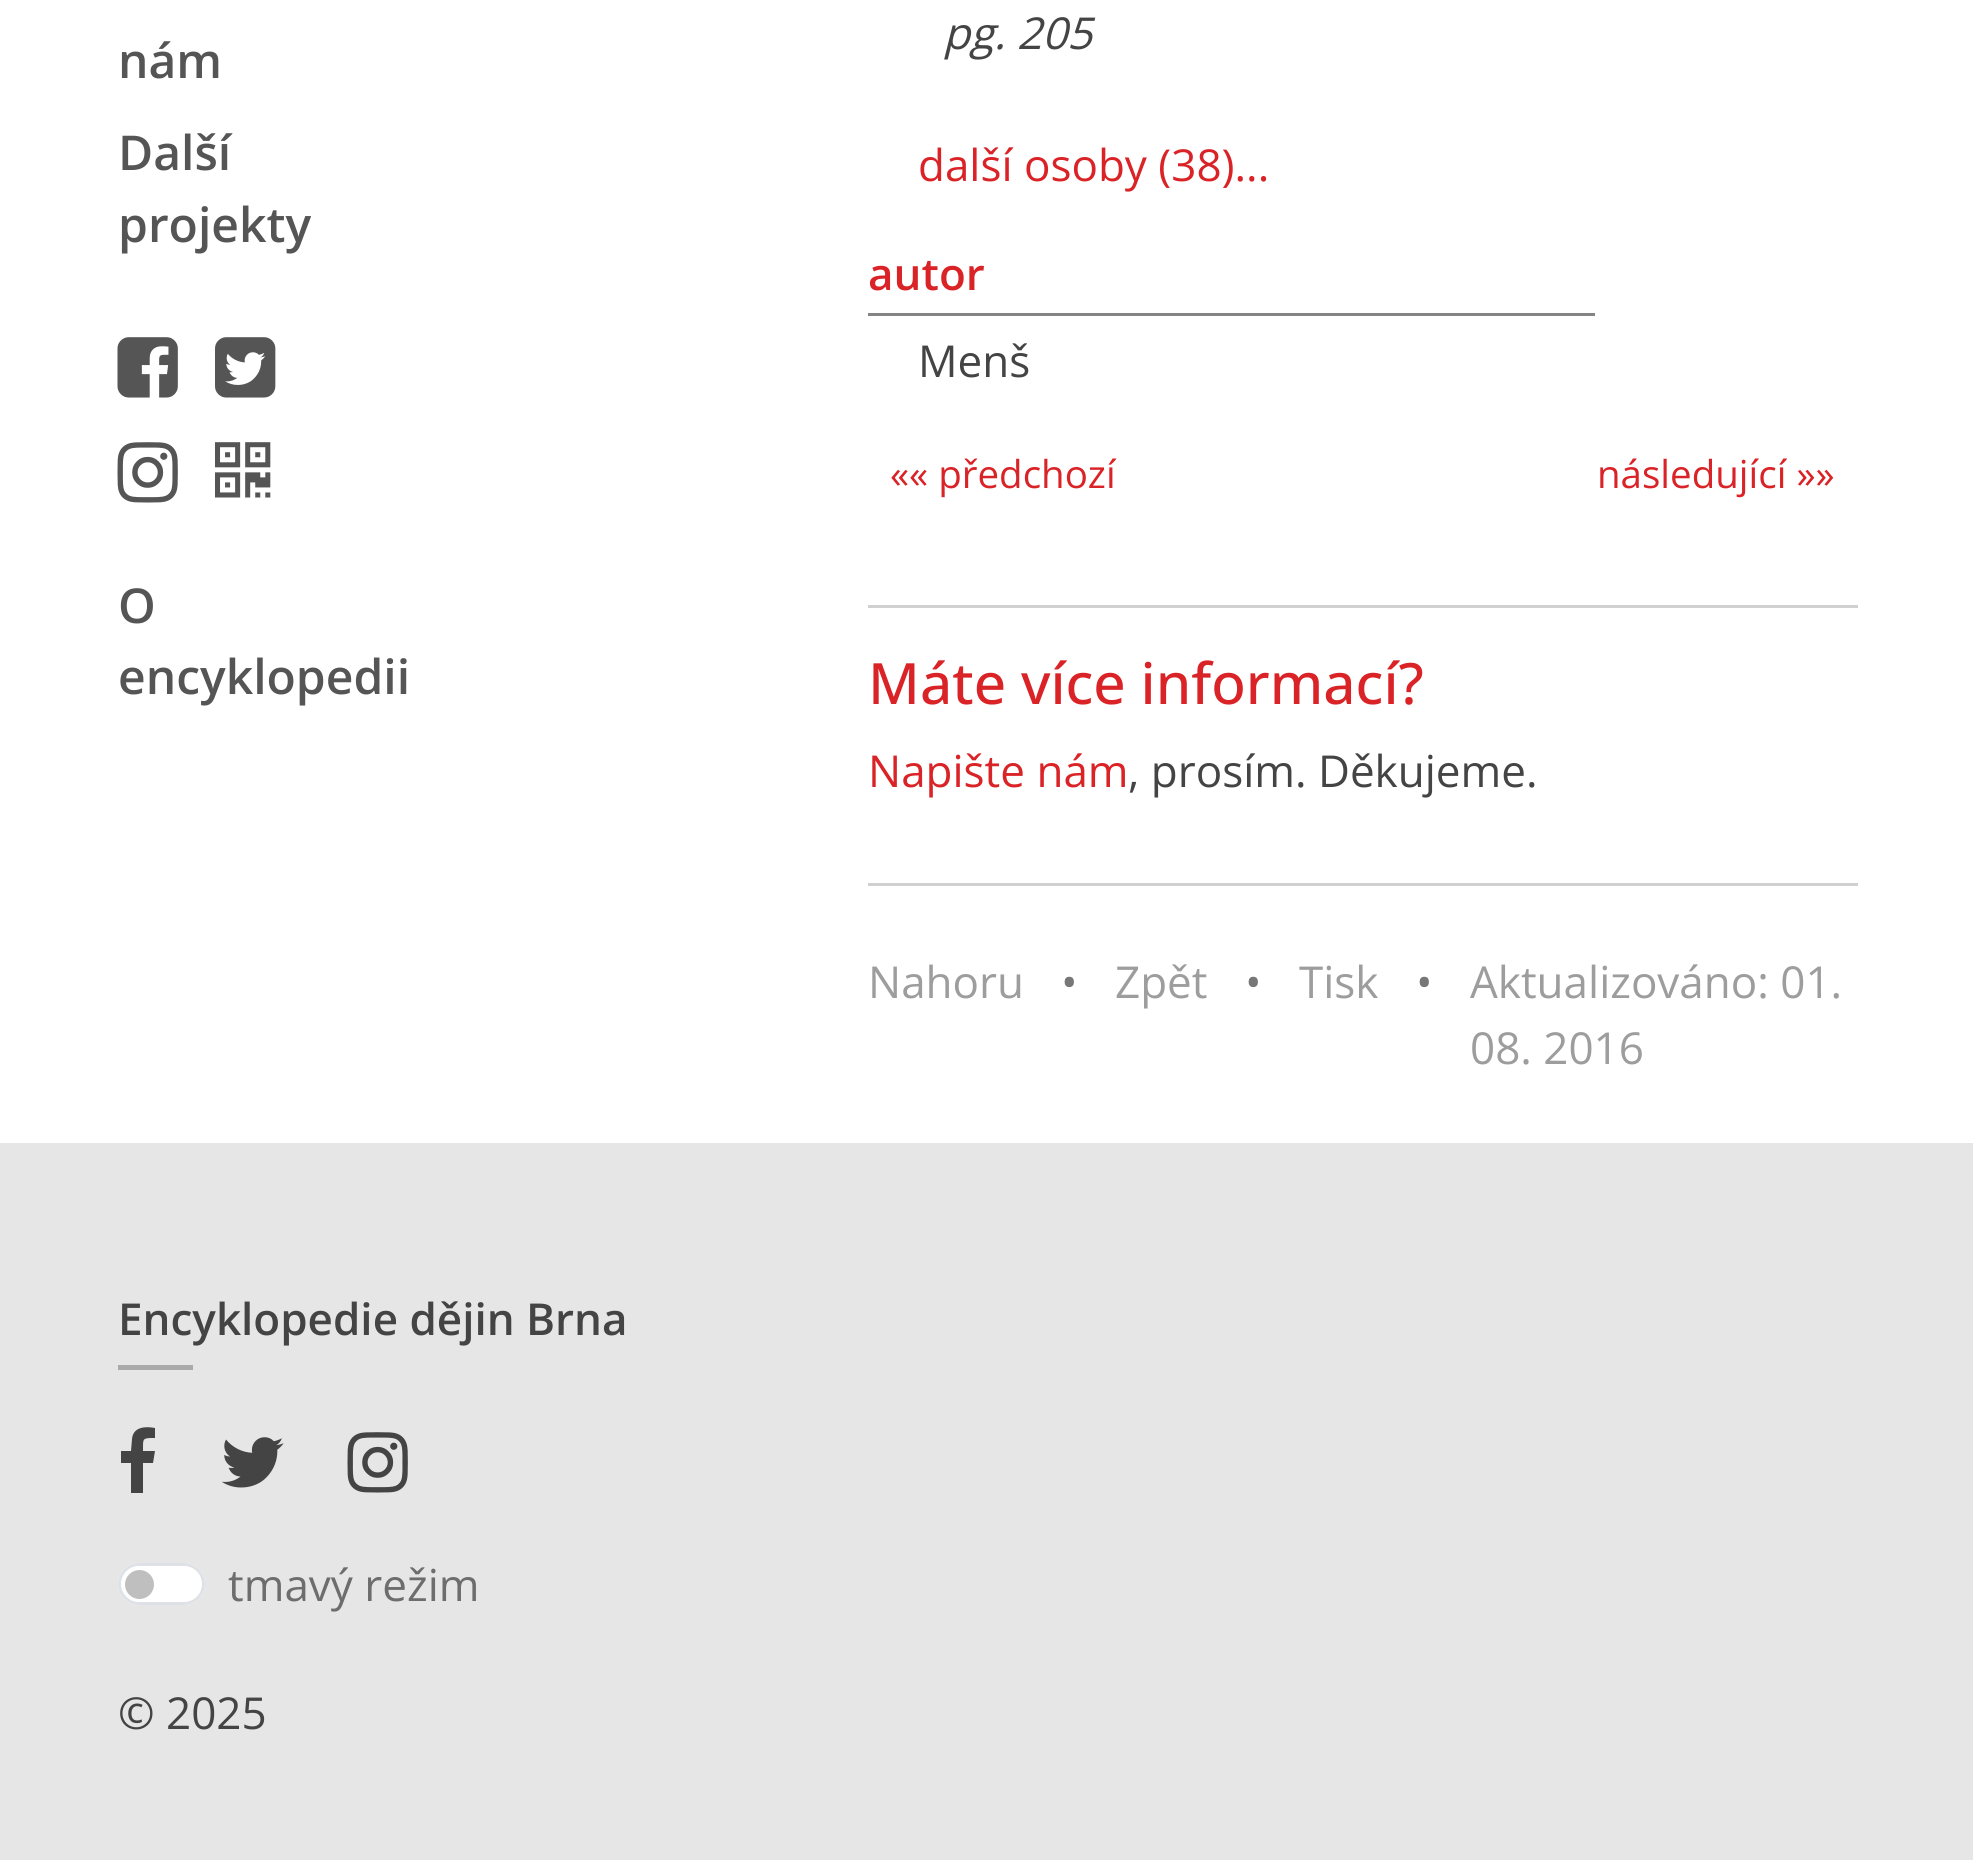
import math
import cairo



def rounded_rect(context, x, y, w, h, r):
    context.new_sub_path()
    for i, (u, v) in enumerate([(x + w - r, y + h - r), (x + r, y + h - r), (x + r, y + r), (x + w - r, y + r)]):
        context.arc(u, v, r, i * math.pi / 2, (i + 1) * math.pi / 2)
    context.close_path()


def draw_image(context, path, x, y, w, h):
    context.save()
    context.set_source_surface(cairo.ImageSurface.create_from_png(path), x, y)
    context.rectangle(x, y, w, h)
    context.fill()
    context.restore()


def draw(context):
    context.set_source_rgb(1, 1, 1)
    context.paint()
    draw_image(context, "images/1.png", 117, 337, 61, 61)
    draw_image(context, "images/2.png", 215, 337, 61, 61)
    draw_image(context, "images/3.png", 117, 442, 61, 61)
    draw_image(context, "images/4.png", 215, 442, 56, 56)
    context.set_source_rgb(132 / 255, 132 / 255, 132 / 255)
    context.rectangle(868, 313, 727, 3)
    context.fill()
    context.set_source_rgb(208 / 255, 208 / 255, 208 / 255)
    context.rectangle(868, 605, 990, 3)
    context.fill()
    context.rectangle(868, 883, 990, 3)
    context.fill()
    context.set_source_rgb(230 / 255, 230 / 255, 230 / 255)
    context.rectangle(0, 1143, 1973, 717)
    context.fill()
    context.set_source_rgb(170 / 255, 170 / 255, 170 / 255)
    context.rectangle(118, 1365, 75, 5)
    context.fill()
    context.set_source_rgb(68 / 255, 68 / 255, 68 / 255)
    context.new_path()
    context.move_to(155, 1428)
    context.line_to(155, 1438)
    context.curve_to(142, 1438, 143, 1438, 143, 1451)
    context.line_to(155, 1451)
    context.line_to(153, 1463)
    context.line_to(143, 1463)
    context.line_to(143, 1493)
    context.line_to(131, 1493)
    context.line_to(131, 1463)
    context.line_to(121, 1463)
    context.line_to(121, 1451)
    context.line_to(131, 1451)
    context.line_to(132, 1439)
    context.curve_to(133, 1427, 145, 1426, 155, 1428)
    context.close_path()
    context.fill()
    draw_image(context, "images/5.png", 222, 1437, 62, 51)
    draw_image(context, "images/6.png", 347, 1432, 61, 61)
    context.set_source_rgb(1, 1, 1)
    rounded_rect(context, 118, 1563, 87, 42, 21)
    context.fill()
    context.set_source_rgb(191 / 255, 191 / 255, 191 / 255)
    context.arc(139.5, 1584.5, 14.5, 0, 2 * math.pi)
    context.fill()
    rounded_rect(context, 119.5, 1564.5, 84, 39, 19.5)
    context.set_source_rgb(222 / 255, 226 / 255, 230 / 255)
    context.set_line_width(3)
    context.stroke()
    context.select_font_face("Open Sans SemiBold")
    context.set_font_size(48)
    context.set_source_rgb(85 / 255, 85 / 255, 85 / 255)
    context.move_to(118, 78)
    context.show_text("nám")
    context.move_to(118, 170)
    context.show_text("Další")
    context.move_to(118, 242)
    context.show_text("projekty")
    context.move_to(118, 623)
    context.show_text("O")
    context.move_to(118, 694)
    context.show_text("encyklopedii")
    context.select_font_face("Open Sans", cairo.FontSlant.ITALIC)
    context.set_font_size(44)
    context.set_source_rgb(68 / 255, 68 / 255, 68 / 255)
    context.move_to(943, 49)
    context.show_text("pg. 205")
    context.select_font_face("Open Sans")
    context.set_source_rgb(218 / 255, 35 / 255, 39 / 255)
    context.move_to(918, 181)
    context.show_text("další osoby (38)...")
    context.select_font_face("Open Sans SemiBold")
    context.move_to(868, 290)
    context.show_text("autor")
    context.select_font_face("Open Sans")
    context.set_source_rgb(68 / 255, 68 / 255, 68 / 255)
    context.move_to(918, 377)
    context.show_text("Menš")
    context.set_font_size(38.5)
    context.set_source_rgb(218 / 255, 35 / 255, 39 / 255)
    context.move_to(890, 488)
    context.show_text("«« předchozí")
    context.move_to(1597, 488)
    context.show_text("následující »»")
    context.select_font_face("Open Sans Medium")
    context.set_font_size(57)
    context.move_to(868, 704)
    context.show_text("Máte více informací?")
    context.select_font_face("Open Sans")
    context.set_font_size(44)
    context.move_to(868, 787)
    context.show_text("Napište nám")
    context.set_source_rgb(68 / 255, 68 / 255, 68 / 255)
    context.move_to(1128, 787)
    context.show_text(", prosím. Děkujeme.")
    context.set_source_rgb(157 / 255, 157 / 255, 157 / 255)
    context.move_to(868, 998)
    context.show_text("Nahoru")
    context.set_source_rgb(119 / 255, 119 / 255, 119 / 255)
    context.move_to(1061, 998)
    context.show_text("•")
    context.set_source_rgb(157 / 255, 157 / 255, 157 / 255)
    context.move_to(1115, 998)
    context.show_text("Zpět")
    context.set_source_rgb(119 / 255, 119 / 255, 119 / 255)
    context.move_to(1245, 998)
    context.show_text("•")
    context.set_source_rgb(157 / 255, 157 / 255, 157 / 255)
    context.move_to(1299, 998)
    context.show_text("Tisk")
    context.set_source_rgb(119 / 255, 119 / 255, 119 / 255)
    context.move_to(1416, 998)
    context.show_text("•")
    context.set_source_rgb(157 / 255, 157 / 255, 157 / 255)
    context.move_to(1470, 998)
    context.show_text("Aktualizováno: 01.")
    context.move_to(1470, 1064)
    context.show_text("08. 2016")
    context.select_font_face("Open Sans SemiBold")
    context.set_source_rgb(68 / 255, 68 / 255, 68 / 255)
    context.move_to(118, 1335)
    context.show_text("Encyklopedie dějin Brna")
    context.select_font_face("Open Sans")
    context.set_source_rgb(109 / 255, 109 / 255, 109 / 255)
    context.move_to(228, 1601)
    context.show_text("tmavý režim")
    context.set_source_rgb(68 / 255, 68 / 255, 68 / 255)
    context.move_to(118, 1729)
    context.show_text("© 2025")


surface = cairo.ImageSurface(cairo.Format.RGB24, 1973, 1860)
context = cairo.Context(surface)
options = cairo.FontOptions()
options.set_hint_metrics(cairo.HintMetrics.OFF)
options.set_hint_style(cairo.HintStyle.NONE)
context.set_font_options(options)
context.set_miter_limit(4)
draw(context)
surface.write_to_png("out.png")
